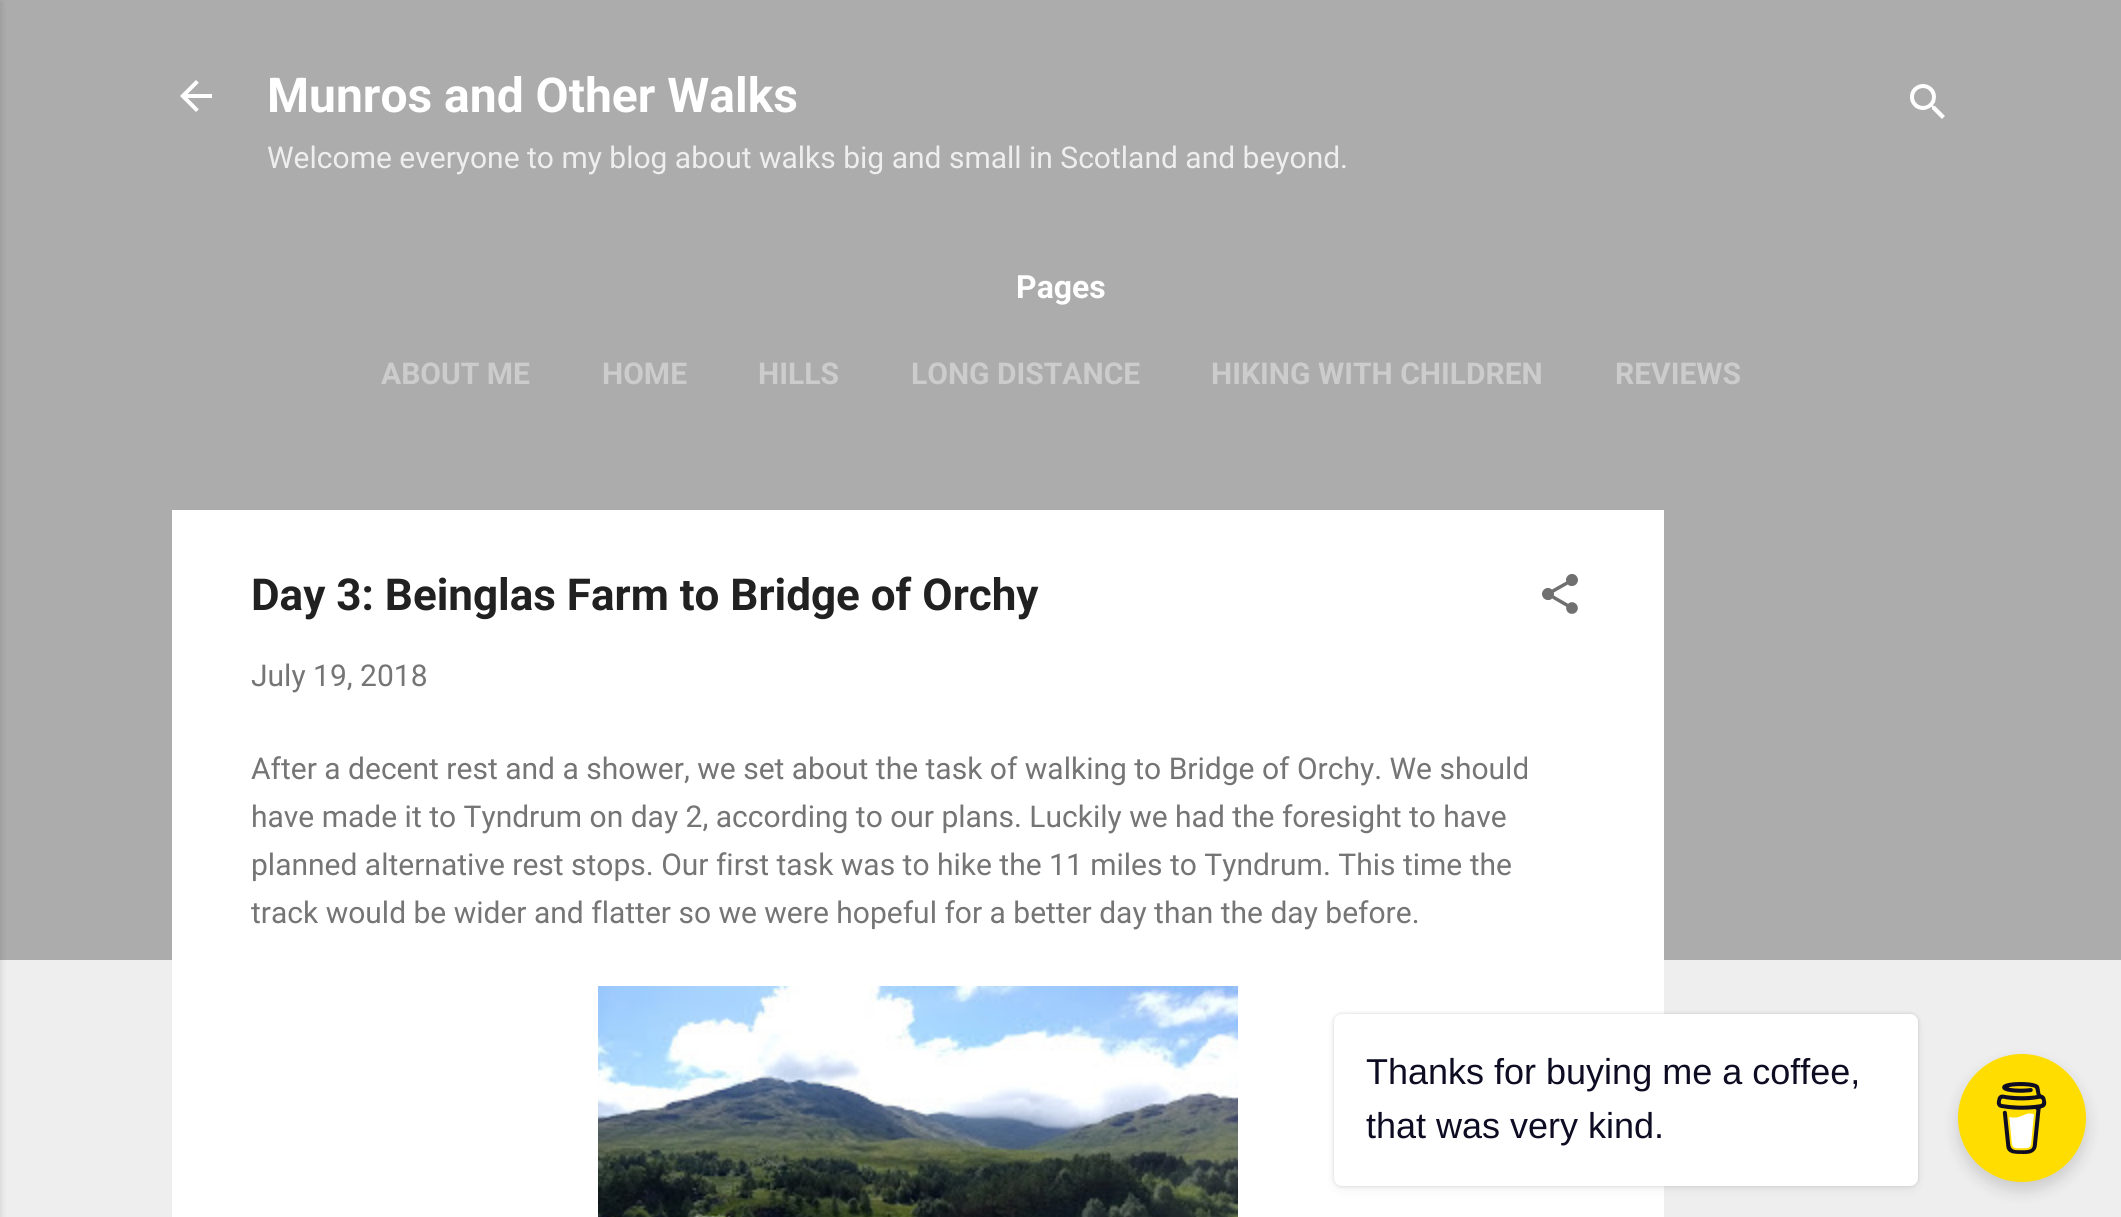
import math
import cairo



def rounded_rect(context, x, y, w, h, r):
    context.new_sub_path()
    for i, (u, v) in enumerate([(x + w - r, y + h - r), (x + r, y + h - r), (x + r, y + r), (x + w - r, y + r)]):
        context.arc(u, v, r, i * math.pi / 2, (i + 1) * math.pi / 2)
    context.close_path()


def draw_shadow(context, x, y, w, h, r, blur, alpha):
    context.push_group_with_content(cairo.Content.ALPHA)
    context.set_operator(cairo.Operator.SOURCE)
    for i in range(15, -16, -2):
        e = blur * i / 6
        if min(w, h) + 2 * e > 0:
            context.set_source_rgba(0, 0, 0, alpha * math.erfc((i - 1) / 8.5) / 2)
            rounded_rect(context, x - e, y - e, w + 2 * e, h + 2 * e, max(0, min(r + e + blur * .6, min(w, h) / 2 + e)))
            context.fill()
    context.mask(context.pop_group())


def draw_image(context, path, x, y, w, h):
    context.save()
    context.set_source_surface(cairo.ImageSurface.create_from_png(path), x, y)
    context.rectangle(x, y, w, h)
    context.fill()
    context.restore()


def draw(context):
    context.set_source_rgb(238 / 255, 238 / 255, 238 / 255)
    context.paint()
    context.set_source_rgb(172 / 255, 172 / 255, 172 / 255)
    context.rectangle(0, 0, 2121, 960)
    context.fill()
    context.set_source_rgb(0, 0, 0)
    draw_shadow(context, -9, 2, 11, 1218, 0, 3, 0.1)
    draw_image(context, "images/1.png", 180, 80, 32, 32)
    draw_image(context, "images/2.png", 1910, 84, 35, 35)
    context.set_source_rgb(1, 1, 1)
    context.rectangle(172, 510, 1492, 707)
    context.fill()
    draw_image(context, "images/3.png", 1542, 574, 36, 40)
    draw_image(context, "images/4.png", 598, 986, 640, 231)
    context.set_source_rgb(0, 0, 0)
    draw_shadow(context, 1334, 1014, 584, 172, 8, 2, 0.15)
    draw_shadow(context, 1334, 1018, 584, 172, 8, 5, 0.05)
    context.set_source_rgb(1, 1, 1)
    rounded_rect(context, 1334, 1014, 584, 172, 8)
    context.fill()
    context.set_source_rgb(0, 0, 0)
    draw_shadow(context, 1958, 1062, 128, 128, 64, 8, 0.15)
    context.set_source_rgb(1, 221 / 255, 0)
    context.arc(2022, 1118, 64, 0, 2 * math.pi)
    context.fill()
    draw_image(context, "images/5.png", 1996, 1082, 51, 72)
    context.select_font_face("Roboto", cairo.FontSlant.NORMAL, cairo.FontWeight.BOLD)
    context.set_font_size(48)
    context.set_source_rgb(1, 1, 1)
    context.move_to(267, 112)
    context.show_text("Munros and Other Walks")
    context.select_font_face("Roboto")
    context.set_font_size(30)
    context.set_source_rgb(238 / 255, 238 / 255, 238 / 255)
    context.move_to(267, 168)
    context.show_text("Welcome everyone to my blog about walks big and small in Scotland and beyond.")
    context.select_font_face("Roboto", cairo.FontSlant.NORMAL, cairo.FontWeight.BOLD)
    context.set_font_size(32)
    context.set_source_rgb(1, 1, 1)
    context.move_to(1016, 298)
    context.show_text("Pages")
    context.set_font_size(30)
    context.set_source_rgb(204 / 255, 204 / 255, 204 / 255)
    context.move_to(381, 384)
    context.show_text("ABOUT ME")
    context.move_to(602, 384)
    context.show_text("HOME")
    context.move_to(758, 384)
    context.show_text("HILLS")
    context.move_to(911, 384)
    context.show_text("LONG DISTANCE")
    context.move_to(1211, 384)
    context.show_text("HIKING WITH CHILDREN")
    context.move_to(1615, 384)
    context.show_text("REVIEWS")
    context.set_font_size(44)
    context.set_source_rgb(33 / 255, 33 / 255, 33 / 255)
    context.move_to(251, 610)
    context.show_text("Day 3: Beinglas Farm to Bridge of Orchy")
    context.select_font_face("Roboto")
    context.set_font_size(30)
    context.set_source_rgb(117 / 255, 117 / 255, 117 / 255)
    context.move_to(251, 686)
    context.show_text("July 19, 2018")
    context.move_to(251, 779)
    context.show_text("After a decent rest and a shower, we set about the task of walking to Bridge of Orchy. We should")
    context.move_to(251, 827)
    context.show_text("have made it to Tyndrum on day 2, according to our plans. Luckily we had the foresight to have")
    context.move_to(251, 875)
    context.show_text("planned alternative rest stops. Our first task was to hike the 11 miles to Tyndrum. This time the")
    context.move_to(251, 923)
    context.show_text("track would be wider and flatter so we were hopeful for a better day than the day before.")
    context.select_font_face("Liberation Sans")
    context.set_font_size(36)
    context.set_source_rgb(13 / 255, 12 / 255, 34 / 255)
    context.move_to(1366, 1084)
    context.show_text("Thanks for buying me a coffee,")
    context.move_to(1366, 1138)
    context.show_text("that was very kind.")


surface = cairo.ImageSurface(cairo.Format.RGB24, 2121, 1217)
context = cairo.Context(surface)
options = cairo.FontOptions()
options.set_hint_metrics(cairo.HintMetrics.OFF)
options.set_hint_style(cairo.HintStyle.NONE)
context.set_font_options(options)
context.set_miter_limit(4)
draw(context)
surface.write_to_png("out.png")
